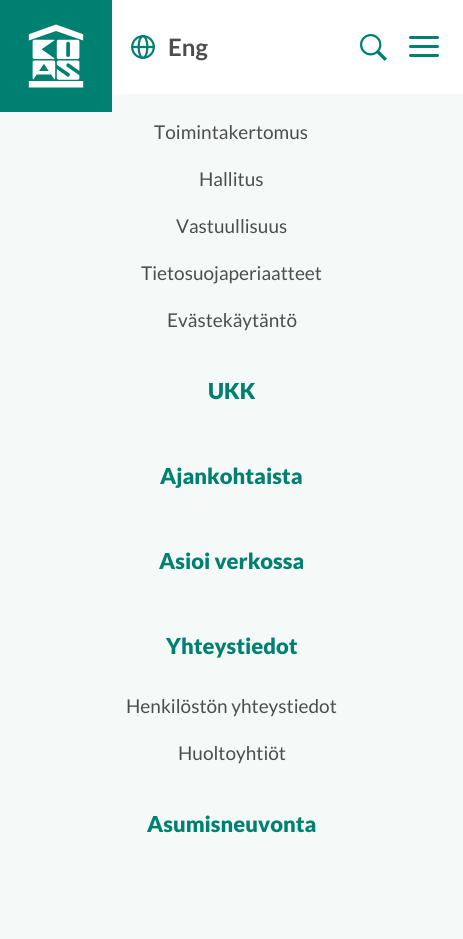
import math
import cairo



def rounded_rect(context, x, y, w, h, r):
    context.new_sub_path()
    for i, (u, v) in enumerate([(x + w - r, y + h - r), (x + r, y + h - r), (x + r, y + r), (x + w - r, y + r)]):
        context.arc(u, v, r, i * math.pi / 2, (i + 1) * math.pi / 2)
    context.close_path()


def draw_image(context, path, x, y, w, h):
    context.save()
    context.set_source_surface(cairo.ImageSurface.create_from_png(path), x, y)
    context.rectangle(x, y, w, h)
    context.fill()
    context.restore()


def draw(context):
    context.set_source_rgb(245 / 255, 250 / 255, 248 / 255)
    context.paint()
    context.set_source_rgb(1, 1, 1)
    context.rectangle(112, 0, 351, 94)
    context.fill()
    draw_image(context, "images/1.png", 0, 0, 112, 112)
    draw_image(context, "images/2.png", 131, 35, 24, 24)
    draw_image(context, "images/3.png", 360, 34, 27, 27)
    context.set_source_rgb(0, 128 / 255, 113 / 255)
    rounded_rect(context, 409, 45, 30, 3, 1.5)
    context.fill()
    rounded_rect(context, 409, 36, 30, 3, 1.5)
    context.fill()
    rounded_rect(context, 409, 54, 30, 3, 1.5)
    context.fill()
    context.select_font_face("Lato", cairo.FontSlant.NORMAL, cairo.FontWeight.BOLD)
    context.set_font_size(24)
    context.set_source_rgb(77 / 255, 77 / 255, 77 / 255)
    context.move_to(168, 56)
    context.show_text("Eng")
    context.select_font_face("Lato")
    context.set_font_size(19)
    context.move_to(154, 139)
    context.show_text("Toimintakertomus")
    context.move_to(199, 186)
    context.show_text("Hallitus")
    context.move_to(176, 233)
    context.show_text("Vastuullisuus")
    context.move_to(141, 280)
    context.show_text("Tietosuojaperiaatteet")
    context.move_to(167, 327)
    context.show_text("Evästekäytäntö")
    context.select_font_face("Lato Black")
    context.set_font_size(22)
    context.set_source_rgb(0, 128 / 255, 113 / 255)
    context.move_to(208, 399)
    context.show_text("UKK")
    context.move_to(160, 484)
    context.show_text("Ajankohtaista")
    context.move_to(159, 569)
    context.show_text("Asioi verkossa")
    context.move_to(166, 654)
    context.show_text("Yhteystiedot")
    context.select_font_face("Lato")
    context.set_font_size(19)
    context.set_source_rgb(77 / 255, 77 / 255, 77 / 255)
    context.move_to(126, 713)
    context.show_text("Henkilöstön yhteystiedot")
    context.move_to(178, 760)
    context.show_text("Huoltoyhtiöt")
    context.select_font_face("Lato Black")
    context.set_font_size(22)
    context.set_source_rgb(0, 128 / 255, 113 / 255)
    context.move_to(147, 832)
    context.show_text("Asumisneuvonta")


surface = cairo.ImageSurface(cairo.Format.RGB24, 463, 939)
context = cairo.Context(surface)
options = cairo.FontOptions()
options.set_hint_metrics(cairo.HintMetrics.OFF)
options.set_hint_style(cairo.HintStyle.NONE)
context.set_font_options(options)
context.set_miter_limit(4)
draw(context)
surface.write_to_png("out.png")
